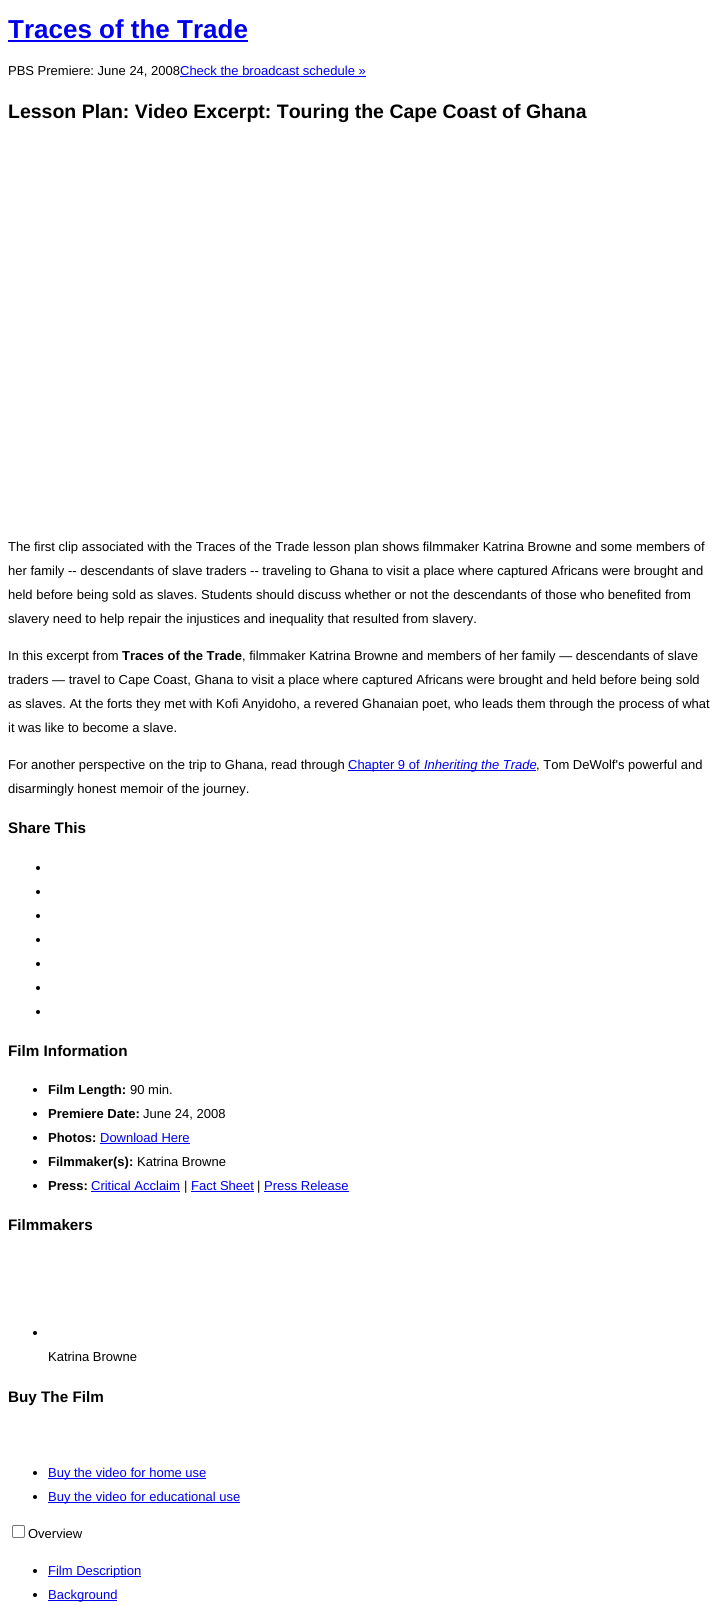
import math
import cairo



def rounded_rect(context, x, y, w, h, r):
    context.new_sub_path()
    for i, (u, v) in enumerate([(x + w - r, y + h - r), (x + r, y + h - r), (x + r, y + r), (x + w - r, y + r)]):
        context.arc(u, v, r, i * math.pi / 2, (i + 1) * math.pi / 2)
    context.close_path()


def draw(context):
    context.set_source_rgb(1, 1, 1)
    context.paint()
    context.set_source_rgb(0, 0, 238 / 255)
    context.rectangle(8, 40, 240, 2)
    context.fill()
    context.rectangle(180, 76, 186, 1)
    context.fill()
    context.rectangle(348, 770, 188, 1)
    context.fill()
    context.set_source_rgb(0, 0, 0)
    context.arc(38, 868, 2, 0, 2 * math.pi)
    context.fill()
    context.arc(38, 892, 2, 0, 2 * math.pi)
    context.fill()
    context.arc(38, 916, 2, 0, 2 * math.pi)
    context.fill()
    context.arc(38, 940, 2, 0, 2 * math.pi)
    context.fill()
    context.arc(38, 964, 2, 0, 2 * math.pi)
    context.fill()
    context.arc(38, 988, 2, 0, 2 * math.pi)
    context.fill()
    context.arc(38, 1012, 2, 0, 2 * math.pi)
    context.fill()
    context.arc(35, 1090, 2, 0, 2 * math.pi)
    context.fill()
    context.arc(35, 1114, 2, 0, 2 * math.pi)
    context.fill()
    context.arc(35, 1138, 2, 0, 2 * math.pi)
    context.fill()
    context.set_source_rgb(0, 0, 238 / 255)
    context.rectangle(100, 1143, 90, 1)
    context.fill()
    context.set_source_rgb(0, 0, 0)
    context.arc(35, 1162, 2, 0, 2 * math.pi)
    context.fill()
    context.arc(35, 1186, 2, 0, 2 * math.pi)
    context.fill()
    context.set_source_rgb(0, 0, 238 / 255)
    context.rectangle(91, 1191, 89, 1)
    context.fill()
    context.rectangle(191, 1191, 63, 1)
    context.fill()
    context.rectangle(264, 1191, 85, 1)
    context.fill()
    context.set_source_rgb(0, 0, 0)
    context.arc(35, 1333, 2, 0, 2 * math.pi)
    context.fill()
    context.arc(35, 1473, 2, 0, 2 * math.pi)
    context.fill()
    context.set_source_rgb(0, 0, 238 / 255)
    context.rectangle(48, 1478, 158, 1)
    context.fill()
    context.set_source_rgb(0, 0, 0)
    context.arc(35, 1497, 2, 0, 2 * math.pi)
    context.fill()
    context.set_source_rgb(0, 0, 238 / 255)
    context.rectangle(48, 1502, 192, 1)
    context.fill()
    rounded_rect(context, 12.5, 1525.5, 12, 12, 1.5)
    context.set_source_rgb(118 / 255, 118 / 255, 118 / 255)
    context.set_line_width(1)
    context.stroke()
    context.set_source_rgb(0, 0, 0)
    context.arc(35, 1571, 2, 0, 2 * math.pi)
    context.fill()
    context.set_source_rgb(0, 0, 238 / 255)
    context.rectangle(48, 1576, 93, 1)
    context.fill()
    context.set_source_rgb(0, 0, 0)
    context.arc(35, 1595, 2, 0, 2 * math.pi)
    context.fill()
    context.set_source_rgb(0, 0, 238 / 255)
    context.rectangle(48, 1600, 69, 1)
    context.fill()
    context.select_font_face("Liberation Sans", cairo.FontSlant.NORMAL, cairo.FontWeight.BOLD)
    context.set_font_size(26)
    context.move_to(8, 38)
    context.show_text("Traces of the Trade")
    context.select_font_face("Liberation Sans")
    context.set_font_size(13)
    context.set_source_rgb(0, 0, 0)
    context.move_to(8, 75)
    context.show_text("PBS Premiere: June 24, 2008")
    context.set_source_rgb(0, 0, 238 / 255)
    context.move_to(180, 75)
    context.show_text("Check the broadcast schedule »")
    context.select_font_face("Liberation Sans", cairo.FontSlant.NORMAL, cairo.FontWeight.BOLD)
    context.set_font_size(19.5)
    context.set_source_rgb(0, 0, 0)
    context.move_to(8, 118)
    context.show_text("Lesson Plan: Video Excerpt: Touring the Cape Coast of Ghana")
    context.select_font_face("Liberation Sans")
    context.set_font_size(13)
    context.move_to(8, 551)
    context.show_text("The first clip associated with the Traces of the Trade lesson plan shows filmmaker Katrina Browne and some members of")
    context.move_to(8, 575)
    context.show_text("her family -- descendants of slave traders -- traveling to Ghana to visit a place where captured Africans were brought and")
    context.move_to(8, 599)
    context.show_text("held before being sold as slaves. Students should discuss whether or not the descendants of those who benefited from")
    context.move_to(8, 623)
    context.show_text("slavery need to help repair the injustices and inequality that resulted from slavery.")
    context.move_to(8, 660)
    context.show_text("In this excerpt from")
    context.select_font_face("Liberation Sans", cairo.FontSlant.NORMAL, cairo.FontWeight.BOLD)
    context.move_to(122, 660)
    context.show_text("Traces of the Trade")
    context.select_font_face("Liberation Sans")
    context.move_to(242, 660)
    context.show_text(", filmmaker Katrina Browne and members of her family — descendants of slave")
    context.move_to(8, 684)
    context.show_text("traders — travel to Cape Coast, Ghana to visit a place where captured Africans were brought and held before being sold")
    context.move_to(8, 708)
    context.show_text("as slaves. At the forts they met with Kofi Anyidoho, a revered Ghanaian poet, who leads them through the process of what")
    context.move_to(8, 732)
    context.show_text("it was like to become a slave.")
    context.move_to(8, 769)
    context.show_text("For another perspective on the trip to Ghana, read through")
    context.set_source_rgb(0, 0, 238 / 255)
    context.move_to(348, 769)
    context.show_text("Chapter 9 of")
    context.select_font_face("Liberation Sans", cairo.FontSlant.ITALIC)
    context.move_to(424, 769)
    context.show_text("Inheriting the Trade")
    context.select_font_face("Liberation Sans")
    context.set_source_rgb(0, 0, 0)
    context.move_to(536, 769)
    context.show_text(", Tom DeWolf's powerful and")
    context.move_to(8, 793)
    context.show_text("disarmingly honest memoir of the journey.")
    context.select_font_face("Liberation Sans", cairo.FontSlant.NORMAL, cairo.FontWeight.BOLD)
    context.set_font_size(15.25)
    context.move_to(8, 833)
    context.show_text("Share This")
    context.move_to(8, 1056)
    context.show_text("Film Information")
    context.set_font_size(13)
    context.move_to(48, 1094)
    context.show_text("Film Length:")
    context.select_font_face("Liberation Sans")
    context.move_to(130, 1094)
    context.show_text("90 min.")
    context.select_font_face("Liberation Sans", cairo.FontSlant.NORMAL, cairo.FontWeight.BOLD)
    context.move_to(48, 1118)
    context.show_text("Premiere Date:")
    context.select_font_face("Liberation Sans")
    context.move_to(143, 1118)
    context.show_text("June 24, 2008")
    context.select_font_face("Liberation Sans", cairo.FontSlant.NORMAL, cairo.FontWeight.BOLD)
    context.move_to(48, 1142)
    context.show_text("Photos:")
    context.select_font_face("Liberation Sans")
    context.set_source_rgb(0, 0, 238 / 255)
    context.move_to(100, 1142)
    context.show_text("Download Here")
    context.select_font_face("Liberation Sans", cairo.FontSlant.NORMAL, cairo.FontWeight.BOLD)
    context.set_source_rgb(0, 0, 0)
    context.move_to(48, 1166)
    context.show_text("Filmmaker(s):")
    context.select_font_face("Liberation Sans")
    context.move_to(137, 1166)
    context.show_text("Katrina Browne")
    context.select_font_face("Liberation Sans", cairo.FontSlant.NORMAL, cairo.FontWeight.BOLD)
    context.move_to(48, 1190)
    context.show_text("Press:")
    context.select_font_face("Liberation Sans")
    context.set_source_rgb(0, 0, 238 / 255)
    context.move_to(91, 1190)
    context.show_text("Critical Acclaim")
    context.set_source_rgb(0, 0, 0)
    context.move_to(184, 1190)
    context.show_text("|")
    context.set_source_rgb(0, 0, 238 / 255)
    context.move_to(191, 1190)
    context.show_text("Fact Sheet")
    context.set_source_rgb(0, 0, 0)
    context.move_to(257, 1190)
    context.show_text("|")
    context.set_source_rgb(0, 0, 238 / 255)
    context.move_to(264, 1190)
    context.show_text("Press Release")
    context.select_font_face("Liberation Sans", cairo.FontSlant.NORMAL, cairo.FontWeight.BOLD)
    context.set_font_size(15.25)
    context.set_source_rgb(0, 0, 0)
    context.move_to(8, 1230)
    context.show_text("Filmmakers")
    context.select_font_face("Liberation Sans")
    context.set_font_size(13)
    context.move_to(48, 1361)
    context.show_text("Katrina Browne")
    context.select_font_face("Liberation Sans", cairo.FontSlant.NORMAL, cairo.FontWeight.BOLD)
    context.set_font_size(15.25)
    context.move_to(8, 1402)
    context.show_text("Buy The Film")
    context.select_font_face("Liberation Sans")
    context.set_font_size(13)
    context.set_source_rgb(0, 0, 238 / 255)
    context.move_to(48, 1477)
    context.show_text("Buy the video for home use")
    context.move_to(48, 1501)
    context.show_text("Buy the video for educational use")
    context.set_source_rgb(0, 0, 0)
    context.move_to(28, 1538)
    context.show_text("Overview")
    context.set_source_rgb(0, 0, 238 / 255)
    context.move_to(48, 1575)
    context.show_text("Film Description")
    context.move_to(48, 1599)
    context.show_text("Background")


surface = cairo.ImageSurface(cairo.Format.RGB24, 722, 1605)
context = cairo.Context(surface)
options = cairo.FontOptions()
options.set_hint_metrics(cairo.HintMetrics.OFF)
options.set_hint_style(cairo.HintStyle.NONE)
context.set_font_options(options)
context.set_miter_limit(4)
draw(context)
surface.write_to_png("out.png")
